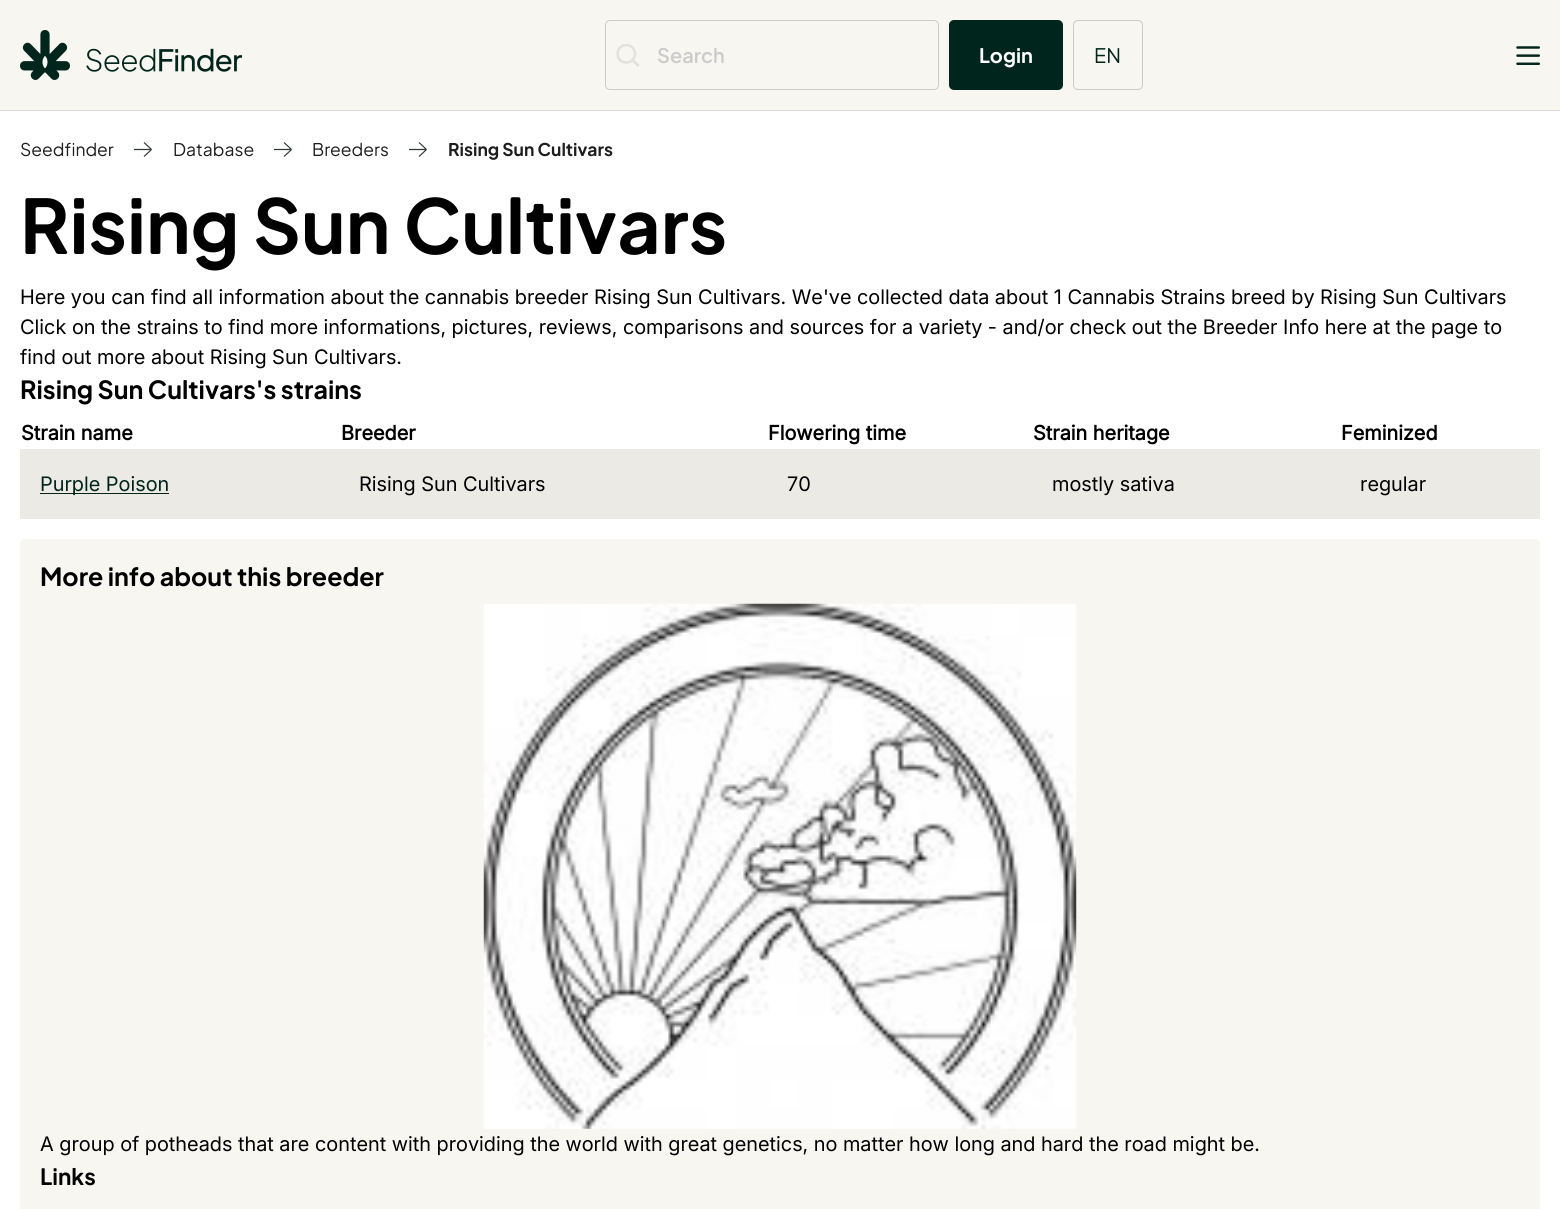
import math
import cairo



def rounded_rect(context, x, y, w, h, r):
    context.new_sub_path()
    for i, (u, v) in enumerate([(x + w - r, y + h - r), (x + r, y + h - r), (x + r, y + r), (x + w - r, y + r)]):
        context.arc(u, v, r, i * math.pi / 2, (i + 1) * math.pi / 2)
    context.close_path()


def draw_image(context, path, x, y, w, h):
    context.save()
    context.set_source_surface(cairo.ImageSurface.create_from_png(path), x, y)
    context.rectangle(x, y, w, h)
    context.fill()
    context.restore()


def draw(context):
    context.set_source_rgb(1, 1, 1)
    context.paint()
    context.set_source_rgb(247 / 255, 246 / 255, 241 / 255)
    context.rectangle(0, 0, 1560, 110)
    context.fill()
    context.set_source_rgb(218 / 255, 218 / 255, 218 / 255)
    context.rectangle(0, 110, 1560, 1)
    context.fill()
    draw_image(context, "images/1.png", 20, 30, 223, 50)
    rounded_rect(context, 605.5, 20.5, 333, 69, 4.5)
    context.set_source_rgb(204 / 255, 203 / 255, 203 / 255)
    context.set_line_width(1)
    context.stroke()
    draw_image(context, "images/2.png", 616, 44, 24, 23)
    context.set_source_rgb(0, 37 / 255, 28 / 255)
    rounded_rect(context, 949, 20, 114, 70, 5)
    context.fill()
    rounded_rect(context, 1073.5, 20.5, 69, 69, 4.5)
    context.set_source_rgb(204 / 255, 203 / 255, 203 / 255)
    context.stroke()
    draw_image(context, "images/3.png", 1516, 46, 24, 19)
    context.save()
    context.rectangle(134, 140, 19, 19)
    context.clip()
    context.new_path()
    context.move_to(144, 156.5)
    context.line_to(151.5, 149.5)
    context.move_to(151.5, 149.5)
    context.line_to(144, 142.5)
    context.move_to(151.5, 149.5)
    context.line_to(133.5, 149.5)
    context.set_source_rgb(49 / 255, 57 / 255, 53 / 255)
    context.set_line_width(1.2)
    context.stroke()
    context.restore()
    context.save()
    context.rectangle(274, 140, 19, 19)
    context.clip()
    context.new_path()
    context.move_to(284, 156.5)
    context.line_to(291.5, 149.5)
    context.move_to(291.5, 149.5)
    context.line_to(284, 142.5)
    context.move_to(291.5, 149.5)
    context.line_to(273.5, 149.5)
    context.set_source_rgb(49 / 255, 57 / 255, 53 / 255)
    context.set_line_width(1.2)
    context.stroke()
    context.restore()
    context.save()
    context.rectangle(409, 140, 19, 19)
    context.clip()
    context.new_path()
    context.move_to(419, 156.5)
    context.line_to(426.5, 149.5)
    context.move_to(426.5, 149.5)
    context.line_to(419, 142.5)
    context.move_to(426.5, 149.5)
    context.line_to(408.5, 149.5)
    context.set_source_rgb(49 / 255, 57 / 255, 53 / 255)
    context.set_line_width(1.2)
    context.stroke()
    context.restore()
    context.set_source_rgb(235 / 255, 234 / 255, 228 / 255)
    context.rectangle(20, 449, 1520, 70)
    context.fill()
    context.set_source_rgb(0, 37 / 255, 28 / 255)
    context.rectangle(40, 493, 129, 1)
    context.fill()
    context.set_source_rgb(247 / 255, 246 / 255, 241 / 255)
    rounded_rect(context, 20, 539, 1520, 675, 5)
    context.fill()
    draw_image(context, "images/4.png", 483, 603, 594, 526)
    context.select_font_face("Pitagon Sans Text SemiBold")
    context.set_font_size(20)
    context.set_source_rgb(204 / 255, 203 / 255, 203 / 255)
    context.move_to(657, 63)
    context.show_text("Search")
    context.select_font_face("Pitagon Sans Text", cairo.FontSlant.NORMAL, cairo.FontWeight.BOLD)
    context.set_source_rgb(1, 1, 1)
    context.move_to(979, 63)
    context.show_text("Login")
    context.select_font_face("Pitagon Sans Text")
    context.set_source_rgb(0, 37 / 255, 28 / 255)
    context.move_to(1094, 63)
    context.show_text("EN")
    context.set_font_size(17.5)
    context.set_source_rgb(30 / 255, 30 / 255, 30 / 255)
    context.move_to(20, 156)
    context.show_text("Seedfinder")
    context.move_to(173, 156)
    context.show_text("Database")
    context.move_to(312, 156)
    context.show_text("Breeders")
    context.select_font_face("Pitagon Sans Text", cairo.FontSlant.NORMAL, cairo.FontWeight.BOLD)
    context.move_to(448, 156)
    context.show_text("Rising Sun Cultivars")
    context.set_font_size(75)
    context.set_source_rgb(0, 0, 0)
    context.move_to(20, 254)
    context.show_text("Rising Sun Cultivars")
    context.select_font_face("Inter")
    context.set_font_size(20)
    context.move_to(20, 304)
    context.show_text("Here you can find all information about the cannabis breeder Rising Sun Cultivars. We've collected data about 1 Cannabis Strains breed by Rising Sun Cultivars")
    context.move_to(20, 334)
    context.show_text("Click on the strains to find more informations, pictures, reviews, comparisons and sources for a variety - and/or check out the Breeder Info here at the page to")
    context.move_to(20, 364)
    context.show_text("find out more about Rising Sun Cultivars.")
    context.select_font_face("Pitagon Sans Text", cairo.FontSlant.NORMAL, cairo.FontWeight.BOLD)
    context.set_font_size(25)
    context.move_to(20, 399)
    context.show_text("Rising Sun Cultivars's strains")
    context.select_font_face("Inter", cairo.FontSlant.NORMAL, cairo.FontWeight.BOLD)
    context.set_font_size(20)
    context.move_to(21, 440)
    context.show_text("Strain name")
    context.move_to(341, 440)
    context.show_text("Breeder")
    context.move_to(768, 440)
    context.show_text("Flowering time")
    context.move_to(1033, 440)
    context.show_text("Strain heritage")
    context.move_to(1341, 440)
    context.show_text("Feminized")
    context.select_font_face("Inter")
    context.set_source_rgb(0, 37 / 255, 28 / 255)
    context.move_to(40, 491)
    context.show_text("Purple Poison")
    context.set_source_rgb(0, 0, 0)
    context.move_to(359, 491)
    context.show_text("Rising Sun Cultivars")
    context.move_to(787, 491)
    context.show_text("70")
    context.move_to(1052, 491)
    context.show_text("mostly sativa")
    context.move_to(1360, 491)
    context.show_text("regular")
    context.select_font_face("Pitagon Sans Text", cairo.FontSlant.NORMAL, cairo.FontWeight.BOLD)
    context.set_font_size(25)
    context.move_to(40, 586)
    context.show_text("More info about this breeder")
    context.select_font_face("Inter")
    context.set_font_size(20)
    context.move_to(40, 1151)
    context.show_text("A group of potheads that are content with providing the world with great genetics, no matter how long and hard the road might be.")
    context.select_font_face("Pitagon Sans Text", cairo.FontSlant.NORMAL, cairo.FontWeight.BOLD)
    context.set_font_size(22.5)
    context.move_to(40, 1185)
    context.show_text("Links")


surface = cairo.ImageSurface(cairo.Format.RGB24, 1560, 1209)
context = cairo.Context(surface)
options = cairo.FontOptions()
options.set_hint_metrics(cairo.HintMetrics.OFF)
options.set_hint_style(cairo.HintStyle.NONE)
context.set_font_options(options)
context.set_miter_limit(4)
draw(context)
surface.write_to_png("out.png")
